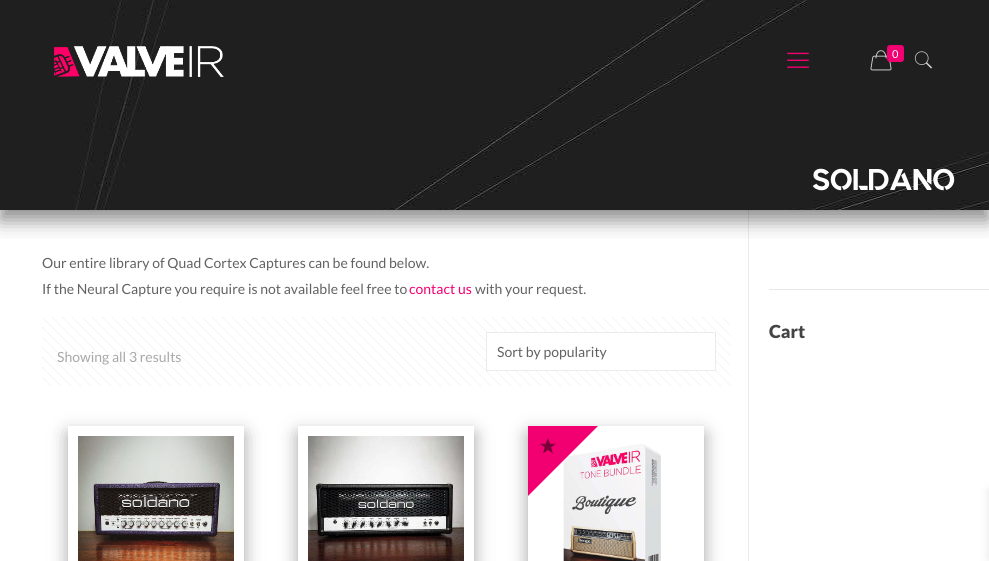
import math
import cairo



def rounded_rect(context, x, y, w, h, r):
    context.new_sub_path()
    for i, (u, v) in enumerate([(x + w - r, y + h - r), (x + r, y + h - r), (x + r, y + r), (x + w - r, y + r)]):
        context.arc(u, v, r, i * math.pi / 2, (i + 1) * math.pi / 2)
    context.close_path()


def draw_shadow(context, x, y, w, h, r, blur, alpha):
    context.push_group_with_content(cairo.Content.ALPHA)
    context.set_operator(cairo.Operator.SOURCE)
    for i in range(15, -16, -2):
        e = blur * i / 6
        if min(w, h) + 2 * e > 0:
            context.set_source_rgba(0, 0, 0, alpha * math.erfc((i - 1) / 8.5) / 2)
            rounded_rect(context, x - e, y - e, w + 2 * e, h + 2 * e, max(0, min(r + e + blur * .6, min(w, h) / 2 + e)))
            context.fill()
    context.mask(context.pop_group())


def draw_image(context, path, x, y, w, h):
    context.save()
    context.set_source_surface(cairo.ImageSurface.create_from_png(path), x, y)
    context.rectangle(x, y, w, h)
    context.fill()
    context.restore()


def draw(context):
    context.set_source_rgb(1, 1, 1)
    context.paint()
    draw_image(context, "images/1.png", 0, 0, 989, 210)
    context.save()
    context.rectangle(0, 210, 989, 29)
    context.clip()
    context.set_source_rgb(98 / 255, 98 / 255, 98 / 255)
    draw_shadow(context, 0, 10, 989, 210, 0, 10, 0.75)
    context.restore()
    draw_image(context, "images/2.png", 54, 46, 170, 31)
    draw_image(context, "images/3.png", 787, 52, 22, 16)
    draw_image(context, "images/4.png", 870, 50, 22, 21)
    context.set_source_rgb(242 / 255, 0, 113 / 255)
    rounded_rect(context, 887, 45, 17, 17, 3)
    context.fill()
    draw_image(context, "images/5.png", 914, 51, 19, 18)
    draw_image(context, "images/6.png", 42, 317, 689, 69)
    context.set_source_rgb(1, 1, 1)
    context.rectangle(486.5, 332.5, 229, 38)
    context.fill_preserve()
    context.set_source_rgb(235 / 255, 235 / 255, 235 / 255)
    context.set_line_width(1)
    context.stroke()
    context.save()
    context.set_fill_rule(cairo.FillRule.EVEN_ODD)
    context.new_path()
    context.move_to(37, 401)
    context.line_to(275, 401)
    context.line_to(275, 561)
    context.line_to(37, 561)
    context.close_path()
    context.move_to(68, 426)
    context.line_to(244, 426)
    context.line_to(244, 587)
    context.line_to(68, 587)
    context.close_path()
    context.clip()
    context.set_source_rgb(0, 0, 0)
    draw_shadow(context, 68, 432, 176, 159, 0, 10, 0.19)
    context.restore()
    context.save()
    context.set_fill_rule(cairo.FillRule.EVEN_ODD)
    context.new_path()
    context.move_to(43, 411)
    context.line_to(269, 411)
    context.line_to(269, 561)
    context.line_to(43, 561)
    context.close_path()
    context.move_to(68, 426)
    context.line_to(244, 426)
    context.line_to(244, 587)
    context.line_to(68, 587)
    context.close_path()
    context.clip()
    context.set_source_rgb(0, 0, 0)
    draw_shadow(context, 68, 436, 176, 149, 0, 8, 0.2)
    context.restore()
    draw_image(context, "images/7.png", 78, 436, 156, 125)
    context.save()
    context.set_fill_rule(cairo.FillRule.EVEN_ODD)
    context.new_path()
    context.move_to(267, 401)
    context.line_to(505, 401)
    context.line_to(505, 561)
    context.line_to(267, 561)
    context.close_path()
    context.move_to(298, 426)
    context.line_to(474, 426)
    context.line_to(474, 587)
    context.line_to(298, 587)
    context.close_path()
    context.clip()
    context.set_source_rgb(0, 0, 0)
    draw_shadow(context, 298, 432, 176, 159, 0, 10, 0.19)
    context.restore()
    context.save()
    context.set_fill_rule(cairo.FillRule.EVEN_ODD)
    context.new_path()
    context.move_to(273, 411)
    context.line_to(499, 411)
    context.line_to(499, 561)
    context.line_to(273, 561)
    context.close_path()
    context.move_to(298, 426)
    context.line_to(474, 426)
    context.line_to(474, 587)
    context.line_to(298, 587)
    context.close_path()
    context.clip()
    context.set_source_rgb(0, 0, 0)
    draw_shadow(context, 298, 436, 176, 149, 0, 8, 0.2)
    context.restore()
    draw_image(context, "images/8.png", 308, 436, 156, 125)
    context.save()
    context.set_fill_rule(cairo.FillRule.EVEN_ODD)
    context.new_path()
    context.move_to(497, 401)
    context.line_to(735, 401)
    context.line_to(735, 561)
    context.line_to(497, 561)
    context.close_path()
    context.move_to(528, 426)
    context.line_to(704, 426)
    context.line_to(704, 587)
    context.line_to(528, 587)
    context.close_path()
    context.clip()
    context.set_source_rgb(0, 0, 0)
    draw_shadow(context, 528, 432, 176, 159, 0, 10, 0.19)
    context.restore()
    context.save()
    context.set_fill_rule(cairo.FillRule.EVEN_ODD)
    context.new_path()
    context.move_to(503, 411)
    context.line_to(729, 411)
    context.line_to(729, 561)
    context.line_to(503, 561)
    context.close_path()
    context.move_to(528, 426)
    context.line_to(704, 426)
    context.line_to(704, 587)
    context.line_to(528, 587)
    context.close_path()
    context.clip()
    context.set_source_rgb(0, 0, 0)
    draw_shadow(context, 528, 436, 176, 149, 0, 8, 0.2)
    context.restore()
    draw_image(context, "images/9.png", 563, 444, 98, 117)
    context.set_source_rgb(242 / 255, 0, 113 / 255)
    context.new_path()
    context.move_to(528, 426)
    context.line_to(598, 426)
    context.line_to(528, 496)
    context.close_path()
    context.fill()
    draw_image(context, "images/10.png", 540, 438, 16, 16)
    context.set_source_rgba(0, 0, 0, 0.08)
    context.rectangle(748, 210, 1, 351)
    context.fill()
    context.set_source_rgb(232 / 255, 232 / 255, 232 / 255)
    context.rectangle(769, 289, 220, 1)
    context.fill()
    context.set_source_rgb(0, 0, 0)
    draw_shadow(context, 989, 490, 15, 70, 0, 5, 0.1)
    context.select_font_face("Lato")
    context.set_font_size(11)
    context.set_source_rgb(1, 1, 1)
    context.move_to(892, 58)
    context.show_text("0")
    context.select_font_face("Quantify")
    context.set_font_size(30)
    context.move_to(812, 190)
    context.show_text("SOLDANO")
    context.select_font_face("Lato")
    context.set_font_size(14)
    context.set_source_rgb(98 / 255, 98 / 255, 98 / 255)
    context.move_to(42, 268)
    context.show_text("Our entire library of Quad Cortex Captures can be found below.")
    context.move_to(42, 294)
    context.show_text("If the Neural Capture you require is not available feel free to")
    context.set_source_rgb(242 / 255, 0, 113 / 255)
    context.move_to(409, 294)
    context.show_text("contact us")
    context.set_source_rgb(98 / 255, 98 / 255, 98 / 255)
    context.move_to(475, 294)
    context.show_text("with your request.")
    context.set_source_rgb(168 / 255, 168 / 255, 168 / 255)
    context.move_to(57, 362)
    context.show_text("Showing all 3 results")
    context.set_source_rgb(98 / 255, 98 / 255, 98 / 255)
    context.move_to(497, 357)
    context.show_text("Sort by popularity")
    context.select_font_face("Lato Black")
    context.set_font_size(18)
    context.set_source_rgb(68 / 255, 68 / 255, 68 / 255)
    context.move_to(769, 338)
    context.show_text("Cart")


surface = cairo.ImageSurface(cairo.Format.RGB24, 989, 561)
context = cairo.Context(surface)
options = cairo.FontOptions()
options.set_hint_metrics(cairo.HintMetrics.OFF)
options.set_hint_style(cairo.HintStyle.NONE)
context.set_font_options(options)
context.set_miter_limit(4)
draw(context)
surface.write_to_png("out.png")
